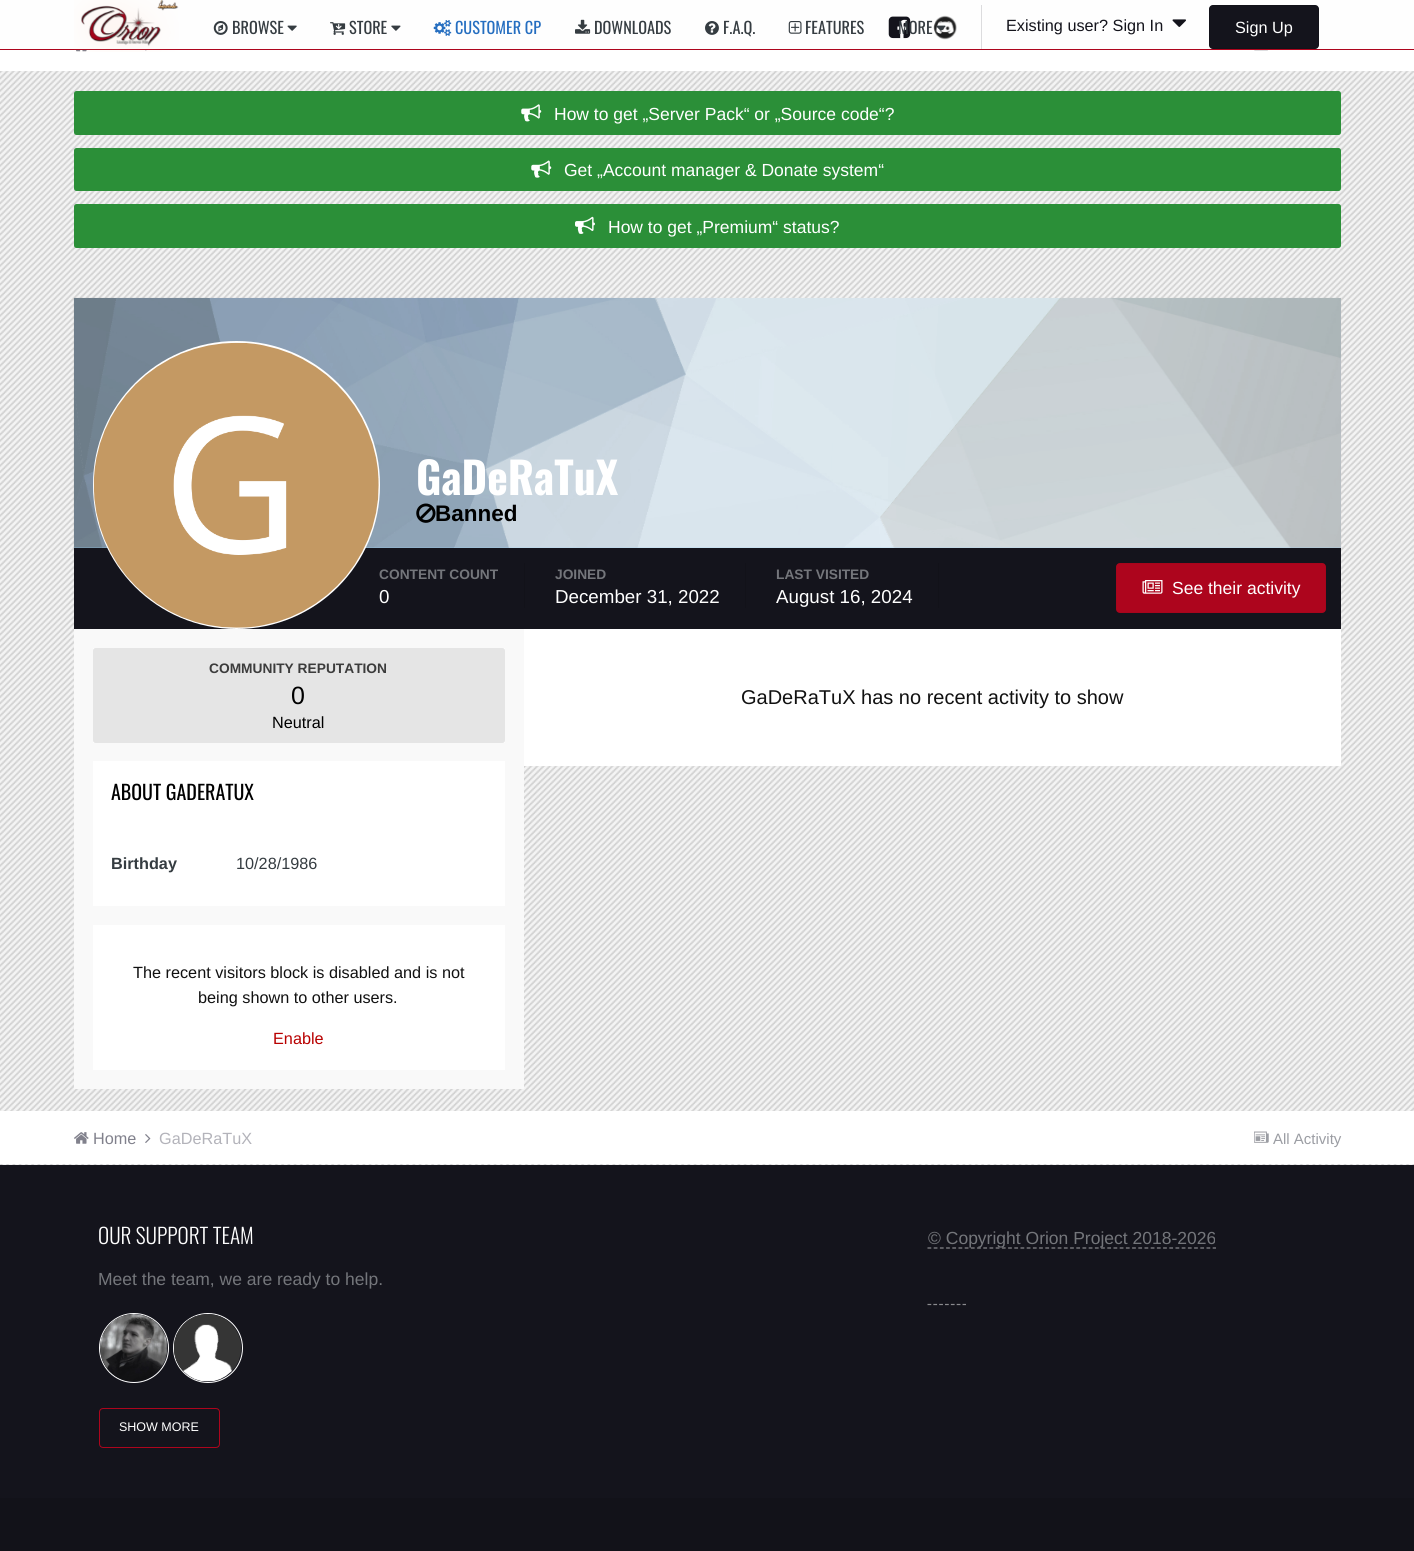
import math
import cairo



def rounded_rect(context, x, y, w, h, r):
    context.new_sub_path()
    for i, (u, v) in enumerate([(x + w - r, y + h - r), (x + r, y + h - r), (x + r, y + r), (x + w - r, y + r)]):
        context.arc(u, v, r, i * math.pi / 2, (i + 1) * math.pi / 2)
    context.close_path()


def draw_image(context, path, x, y, w, h):
    context.save()
    context.set_source_surface(cairo.ImageSurface.create_from_png(path), x, y)
    context.rectangle(x, y, w, h)
    context.fill()
    context.restore()


def draw(context):
    context.set_source_rgb(209 / 255, 209 / 255, 209 / 255)
    context.paint()
    draw_image(context, "images/1.png", 0, 71, 1414, 1094)
    context.set_source_rgb(254 / 255, 254 / 255, 254 / 255)
    context.rectangle(0, 0, 1414, 49)
    context.fill()
    context.set_source_rgb(173 / 255, 5 / 255, 29 / 255)
    context.rectangle(0, 49, 1414, 1)
    context.fill()
    context.set_source_rgb(1, 1, 1)
    context.rectangle(0, 50, 1414, 21)
    context.fill()
    draw_image(context, "images/15.png", 76, 50, 11, 2)
    draw_image(context, "images/16.png", 145, 50, 2, 1)
    draw_image(context, "images/2.png", 74, 0, 105, 52)
    draw_image(context, "images/3.png", 213, 21, 15, 14)
    draw_image(context, "images/4.png", 287, 25, 10, 6)
    draw_image(context, "images/5.png", 330, 22, 16, 13)
    draw_image(context, "images/6.png", 391, 25, 10, 6)
    draw_image(context, "images/7.png", 433, 20, 19, 16)
    draw_image(context, "images/8.png", 575, 19, 16, 15)
    draw_image(context, "images/9.png", 705, 21, 14, 14)
    draw_image(context, "images/10.png", 788, 21, 14, 13)
    draw_image(context, "images/13.png", 933, 15, 24, 25)
    draw_image(context, "images/11.png", 936, 25, 10, 6)
    draw_image(context, "images/12.png", 888, 16, 23, 23)
    context.set_source_rgb(220 / 255, 220 / 255, 222 / 255)
    context.rectangle(981, 5, 1, 44)
    context.fill()
    draw_image(context, "images/14.png", 1172, 19, 14, 8)
    context.set_source_rgb(20 / 255, 20 / 255, 28 / 255)
    rounded_rect(context, 1209, 5, 110, 44, 4)
    context.fill()
    rounded_rect(context, 1209.5, 5.5, 109, 43, 3.5)
    context.set_source_rgba(0, 0, 0, 0.1)
    context.set_line_width(1)
    context.stroke()
    draw_image(context, "images/17.png", 1254, 50, 14, 1)
    context.set_source_rgb(43 / 255, 143 / 255, 56 / 255)
    rounded_rect(context, 74, 91, 1267, 44, 2.5)
    context.fill()
    draw_image(context, "images/18.png", 521, 104, 21, 18)
    rounded_rect(context, 74, 148, 1267, 43, 2.5)
    context.fill()
    draw_image(context, "images/19.png", 531, 160, 21, 18)
    rounded_rect(context, 74, 204, 1267, 44, 2.5)
    context.fill()
    draw_image(context, "images/20.png", 575, 216, 20, 18)
    context.set_source_rgb(153 / 255, 213 / 255, 1)
    context.rectangle(74, 298, 1267, 250)
    context.fill()
    draw_image(context, "images/21.png", 73, 297, 1269, 251)
    context.set_source_rgb(20 / 255, 20 / 255, 28 / 255)
    context.rectangle(74, 548, 1267, 81)
    context.fill()
    context.set_source_rgb(1, 1, 1)
    rounded_rect(context, 93, 341, 287, 288, 143.5)
    context.fill()
    draw_image(context, "images/22.png", 93, 342, 286, 286)
    draw_image(context, "images/23.png", 416, 503, 20, 20)
    context.set_source_rgb(18 / 255, 18 / 255, 25 / 255)
    context.rectangle(524, 563, 1, 45)
    context.fill()
    context.rectangle(745, 563, 1, 45)
    context.fill()
    context.rectangle(938, 563, 1, 45)
    context.fill()
    context.set_source_rgb(173 / 255, 5 / 255, 29 / 255)
    rounded_rect(context, 1116, 563, 210, 50, 4)
    context.fill()
    context.rectangle(1116.5, 563.5, 209, 49)
    context.set_source_rgba(0, 0, 0, 0.03)
    context.stroke()
    draw_image(context, "images/24.png", 1142, 580, 21, 14)
    context.set_source_rgb(249 / 255, 249 / 255, 249 / 255)
    context.rectangle(74, 629, 450, 460)
    context.fill()
    context.set_source_rgb(1, 1, 1)
    context.rectangle(93, 648, 412, 95)
    context.fill()
    context.set_source_rgb(229 / 255, 229 / 255, 229 / 255)
    rounded_rect(context, 93, 648, 412, 95, 2.5)
    context.fill()
    context.set_source_rgb(1, 1, 1)
    context.rectangle(93, 761, 412, 145)
    context.fill()
    context.rectangle(93, 925, 412, 145)
    context.fill()
    context.rectangle(524, 629, 817, 137)
    context.fill()
    context.rectangle(0, 1111, 1414, 53)
    context.fill()
    draw_image(context, "images/25.png", 74, 1132, 15, 12)
    draw_image(context, "images/26.png", 145, 1134, 6, 9)
    draw_image(context, "images/27.png", 1254, 1131, 15, 12)
    context.set_source_rgb(20 / 255, 20 / 255, 28 / 255)
    context.rectangle(0, 1165, 1414, 333)
    context.fill()
    context.arc(134, 1348, 34.5, 0, 2 * math.pi)
    context.set_source_rgb(1, 1, 1)
    context.stroke()
    draw_image(context, "images/28.png", 100, 1314, 68, 68)
    context.arc(208, 1348, 34.5, 0, 2 * math.pi)
    context.stroke()
    draw_image(context, "images/29.png", 173, 1314, 68, 68)
    rounded_rect(context, 99.5, 1408.5, 120, 39, 3.5)
    context.set_source_rgb(173 / 255, 5 / 255, 29 / 255)
    context.stroke()
    context.new_path()
    context.move_to(927.5, 1248)
    context.line_to(1216, 1248)
    context.set_source_rgb(138 / 255, 138 / 255, 142 / 255)
    context.set_line_width(1.2)
    context.set_dash([3.75, 2.45])
    context.stroke()
    context.new_path()
    context.move_to(927.5, 1304.5)
    context.line_to(966, 1304.5)
    context.set_dash([3.75, 2.09])
    context.stroke()
    context.set_source_rgb(18 / 255, 18 / 255, 25 / 255)
    context.rectangle(0, 1498, 1414, 53)
    context.fill()
    context.select_font_face("Oswald")
    context.set_font_size(16.25)
    context.set_source_rgb(53 / 255, 60 / 255, 65 / 255)
    context.move_to(232, 34)
    context.show_text("BROWSE")
    context.move_to(349, 34)
    context.show_text("STORE")
    context.set_source_rgb(37 / 255, 110 / 255, 192 / 255)
    context.move_to(455, 34)
    context.show_text("CUSTOMER CP")
    context.set_source_rgb(53 / 255, 60 / 255, 65 / 255)
    context.move_to(594, 34)
    context.show_text("DOWNLOADS")
    context.move_to(723, 34)
    context.show_text("F.A.Q.")
    context.move_to(805, 34)
    context.show_text("FEATURES")
    context.move_to(898, 34)
    context.show_text("MORE")
    context.select_font_face("Liberation Sans")
    context.set_source_rgb(20 / 255, 20 / 255, 28 / 255)
    context.move_to(1006, 31)
    context.show_text("Existing user? Sign In")
    context.set_source_rgb(1, 1, 1)
    context.move_to(1235, 33)
    context.show_text("Sign Up")
    context.set_font_size(17.5)
    context.move_to(554, 120)
    context.show_text("How to get „Server Pack“ or „Source code“?")
    context.move_to(564, 176)
    context.show_text("Get „Account manager & Donate system“")
    context.move_to(608, 233)
    context.show_text("How to get „Premium“ status?")
    context.select_font_face("Oswald", cairo.FontSlant.NORMAL, cairo.FontWeight.BOLD)
    context.set_font_size(43.75)
    context.move_to(416, 495)
    context.show_text("GaDeRaTuX")
    context.select_font_face("Liberation Sans", cairo.FontSlant.NORMAL, cairo.FontWeight.BOLD)
    context.set_font_size(22.5)
    context.set_source_rgb(0, 0, 0)
    context.move_to(435, 521)
    context.show_text("Banned")
    context.set_font_size(13.75)
    context.set_source_rgb(116 / 255, 118 / 255, 123 / 255)
    context.move_to(379, 579)
    context.show_text("CONTENT COUNT")
    context.select_font_face("Liberation Sans")
    context.set_font_size(18.75)
    context.set_source_rgb(1, 1, 1)
    context.move_to(379, 603)
    context.show_text("0")
    context.select_font_face("Liberation Sans", cairo.FontSlant.NORMAL, cairo.FontWeight.BOLD)
    context.set_font_size(13.75)
    context.set_source_rgb(116 / 255, 118 / 255, 123 / 255)
    context.move_to(555, 579)
    context.show_text("JOINED")
    context.select_font_face("Liberation Sans")
    context.set_font_size(18.75)
    context.set_source_rgb(1, 1, 1)
    context.move_to(555, 603)
    context.show_text("December 31, 2022")
    context.select_font_face("Liberation Sans", cairo.FontSlant.NORMAL, cairo.FontWeight.BOLD)
    context.set_font_size(13.75)
    context.set_source_rgb(116 / 255, 118 / 255, 123 / 255)
    context.move_to(776, 579)
    context.show_text("LAST VISITED")
    context.select_font_face("Liberation Sans")
    context.set_font_size(18.75)
    context.set_source_rgb(1, 1, 1)
    context.move_to(776, 603)
    context.show_text("August 16, 2024")
    context.set_font_size(17.5)
    context.move_to(1172, 594)
    context.show_text("See their activity")
    context.select_font_face("Liberation Sans", cairo.FontSlant.NORMAL, cairo.FontWeight.BOLD)
    context.set_font_size(13.75)
    context.set_source_rgb(60 / 255, 60 / 255, 60 / 255)
    context.move_to(209, 673)
    context.show_text("COMMUNITY REPUTATION")
    context.select_font_face("Liberation Sans")
    context.set_font_size(25)
    context.set_source_rgb(0, 0, 0)
    context.move_to(291, 704)
    context.show_text("0")
    context.set_font_size(16.25)
    context.move_to(272, 728)
    context.show_text("Neutral")
    context.select_font_face("Oswald")
    context.set_font_size(20)
    context.move_to(111, 800)
    context.show_text("ABOUT GADERATUX")
    context.select_font_face("Liberation Sans", cairo.FontSlant.NORMAL, cairo.FontWeight.BOLD)
    context.set_font_size(16.25)
    context.set_source_rgb(53 / 255, 60 / 255, 65 / 255)
    context.move_to(111, 869)
    context.show_text("Birthday")
    context.select_font_face("Liberation Sans")
    context.move_to(236, 869)
    context.show_text("10/28/1986")
    context.set_source_rgb(17 / 255, 17 / 255, 17 / 255)
    context.move_to(133, 978)
    context.show_text("The recent visitors block is disabled and is not")
    context.move_to(198, 1003)
    context.show_text("being shown to other users.")
    context.set_source_rgb(184 / 255, 0, 0)
    context.move_to(273, 1044)
    context.show_text("Enable")
    context.set_font_size(20)
    context.set_source_rgb(17 / 255, 17 / 255, 17 / 255)
    context.move_to(741, 704)
    context.show_text("GaDeRaTuX has no recent activity to show")
    context.set_font_size(16.25)
    context.set_source_rgb(129 / 255, 129 / 255, 140 / 255)
    context.move_to(93, 1144)
    context.show_text("Home")
    context.set_source_rgb(179 / 255, 179 / 255, 186 / 255)
    context.move_to(159, 1144)
    context.show_text("GaDeRaTuX")
    context.set_font_size(15)
    context.set_source_rgb(155 / 255, 157 / 255, 163 / 255)
    context.move_to(1273, 1144)
    context.show_text("All Activity")
    context.select_font_face("Oswald Light")
    context.set_font_size(21.25)
    context.set_source_rgb(1, 1, 1)
    context.move_to(98, 1244)
    context.show_text("OUR SUPPORT TEAM")
    context.select_font_face("Liberation Sans")
    context.set_font_size(17.5)
    context.set_source_rgb(116 / 255, 118 / 255, 123 / 255)
    context.move_to(98, 1285)
    context.show_text("Meet the team, we are ready to help.")
    context.set_font_size(12.5)
    context.set_source_rgb(1, 1, 1)
    context.move_to(119, 1431)
    context.show_text("SHOW MORE")
    context.set_font_size(17.5)
    context.set_source_rgb(116 / 255, 118 / 255, 123 / 255)
    context.move_to(928, 1244)
    context.show_text("© Copyright Orion Project 2018-2026")


surface = cairo.ImageSurface(cairo.Format.RGB24, 1414, 1551)
context = cairo.Context(surface)
options = cairo.FontOptions()
options.set_hint_metrics(cairo.HintMetrics.OFF)
options.set_hint_style(cairo.HintStyle.NONE)
context.set_font_options(options)
context.set_miter_limit(4)
draw(context)
surface.write_to_png("out.png")
